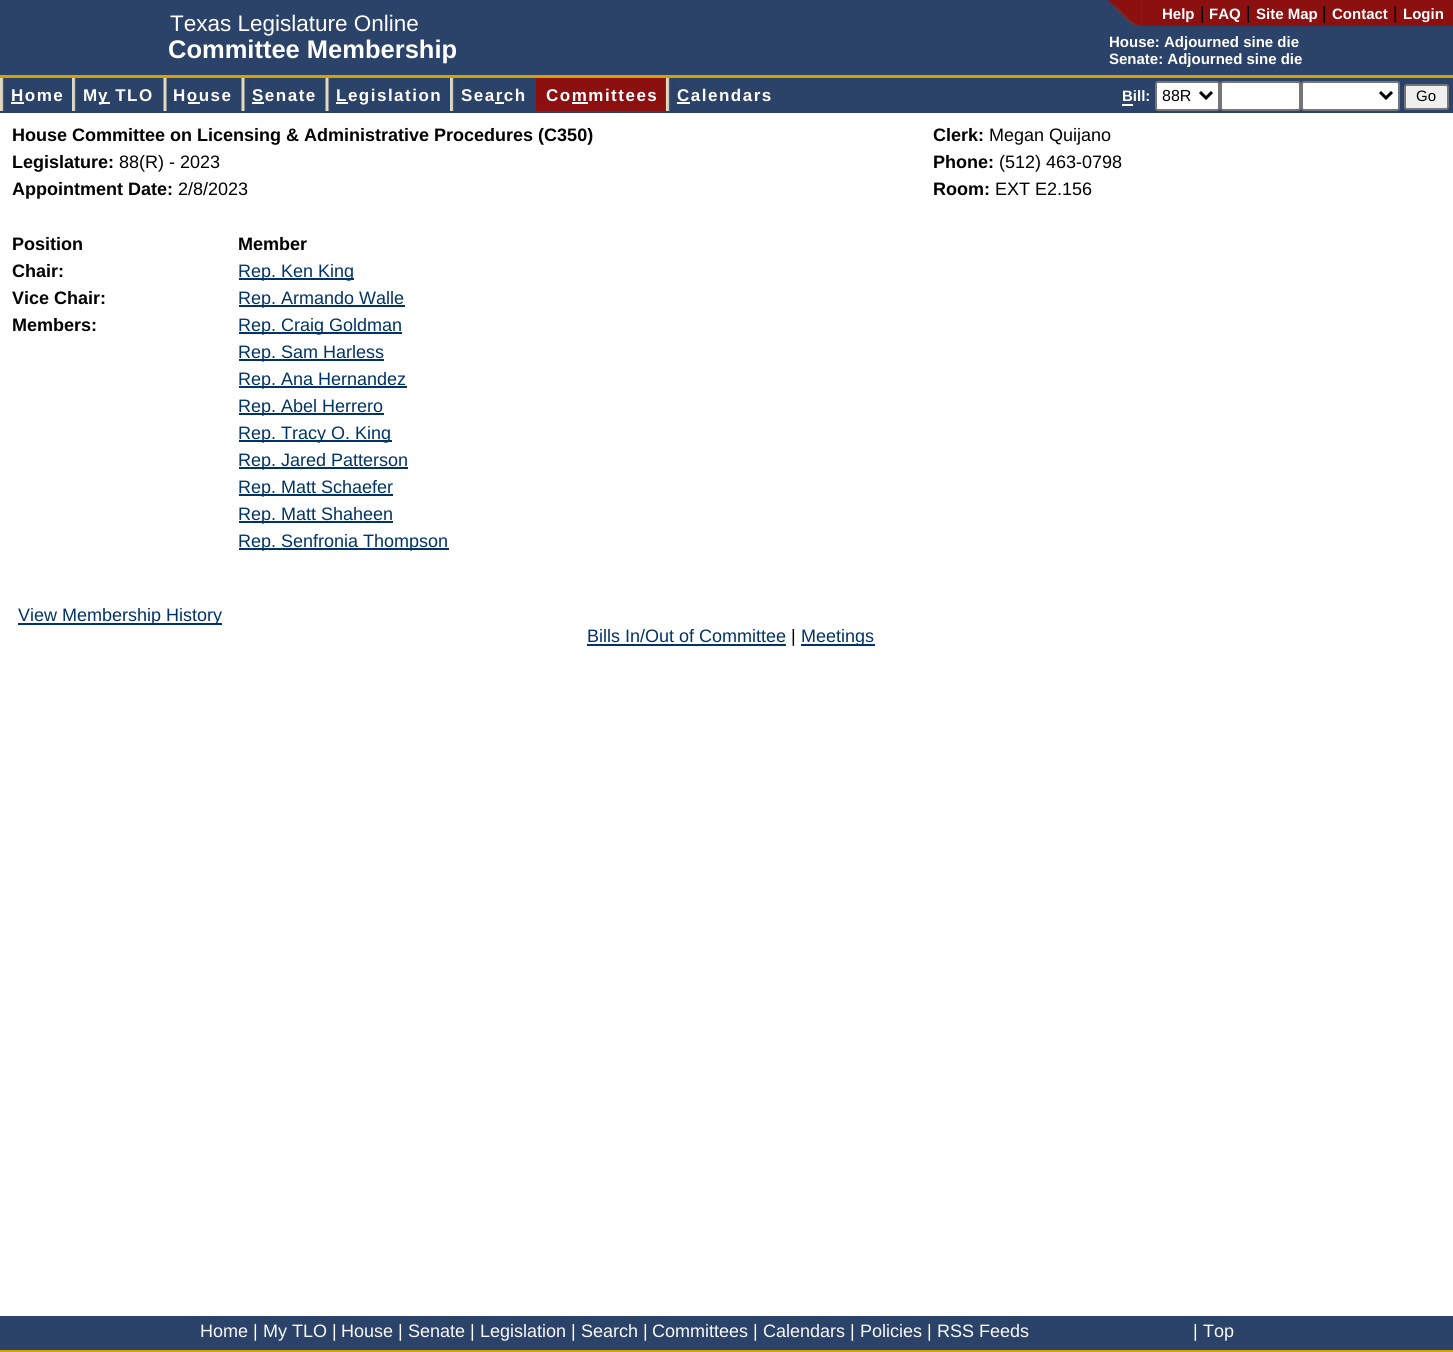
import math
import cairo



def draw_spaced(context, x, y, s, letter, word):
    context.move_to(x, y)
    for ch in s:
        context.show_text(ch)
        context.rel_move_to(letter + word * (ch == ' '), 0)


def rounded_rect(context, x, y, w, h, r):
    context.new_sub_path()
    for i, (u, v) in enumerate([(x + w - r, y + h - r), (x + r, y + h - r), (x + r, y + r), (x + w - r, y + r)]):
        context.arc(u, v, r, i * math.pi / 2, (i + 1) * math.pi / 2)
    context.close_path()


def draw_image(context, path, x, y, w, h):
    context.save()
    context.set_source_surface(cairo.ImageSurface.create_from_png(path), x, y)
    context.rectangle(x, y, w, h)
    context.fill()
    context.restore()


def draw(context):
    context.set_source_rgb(1, 1, 1)
    context.paint()
    context.set_source_rgb(44 / 255, 67 / 255, 105 / 255)
    context.rectangle(0, 0, 1453, 75)
    context.fill()
    draw_image(context, "images/1.png", 1108, 0, 34, 26)
    context.set_source_rgb(140 / 255, 16 / 255, 16 / 255)
    context.rectangle(1142, 0, 311, 26)
    context.fill()
    context.set_source_rgb(215 / 255, 161 / 255, 0)
    context.rectangle(0, 75, 1453, 3)
    context.fill()
    context.set_source_rgb(44 / 255, 67 / 255, 105 / 255)
    context.rectangle(0, 78, 1453, 35)
    context.fill()
    context.set_source_rgb(1 / 255, 69 / 255, 140 / 255)
    context.rectangle(70, 78, 1, 33)
    context.fill()
    draw_image(context, "images/2.png", 0, 78, 71, 33)
    context.set_source_rgb(1, 1, 1)
    context.rectangle(11, 102, 13, 2)
    context.fill()
    draw_image(context, "images/3.png", 72, 78, 90, 33)
    context.rectangle(99, 102, 11, 2)
    context.fill()
    draw_image(context, "images/4.png", 163, 78, 77, 33)
    context.rectangle(188, 102, 12, 2)
    context.fill()
    draw_image(context, "images/5.png", 241, 78, 83, 33)
    context.rectangle(252, 102, 12, 2)
    context.fill()
    context.set_source_rgb(1 / 255, 69 / 255, 140 / 255)
    context.rectangle(448, 78, 1, 33)
    context.fill()
    draw_image(context, "images/6.png", 325, 78, 124, 33)
    context.set_source_rgb(1, 1, 1)
    context.rectangle(336, 102, 12, 2)
    context.fill()
    draw_image(context, "images/7.png", 450, 78, 84, 33)
    context.rectangle(495, 102, 9, 2)
    context.fill()
    context.set_source_rgb(140 / 255, 16 / 255, 16 / 255)
    context.rectangle(536, 78, 129, 33)
    context.fill()
    context.set_source_rgb(1, 1, 1)
    context.rectangle(572, 102, 16, 2)
    context.fill()
    draw_image(context, "images/8.png", 666, 78, 114, 33)
    context.rectangle(677, 102, 13, 2)
    context.fill()
    context.rectangle(1122, 104, 11, 2)
    context.fill()
    rounded_rect(context, 1156, 82, 63, 28, 2)
    context.fill_preserve()
    context.set_source_rgb(118 / 255, 118 / 255, 118 / 255)
    context.stroke()
    context.new_path()
    context.move_to(1200, 92)
    context.line_to(1206, 98)
    context.line_to(1212, 92)
    context.set_source_rgb(0, 0, 0)
    context.set_line_width(3)
    context.stroke()
    context.set_source_rgb(1, 1, 1)
    rounded_rect(context, 1221, 82, 79, 28, 2)
    context.fill_preserve()
    context.set_source_rgb(118 / 255, 118 / 255, 118 / 255)
    context.set_line_width(2)
    context.stroke()
    context.set_source_rgb(1, 1, 1)
    rounded_rect(context, 1302, 82, 97, 28, 2)
    context.fill_preserve()
    context.set_source_rgb(118 / 255, 118 / 255, 118 / 255)
    context.stroke()
    context.new_path()
    context.move_to(1380, 92)
    context.line_to(1386, 98)
    context.line_to(1392, 92)
    context.set_source_rgb(0, 0, 0)
    context.set_line_width(3)
    context.stroke()
    context.set_source_rgb(239 / 255, 239 / 255, 239 / 255)
    rounded_rect(context, 1405, 85, 43, 24, 2)
    context.fill_preserve()
    context.set_source_rgb(118 / 255, 118 / 255, 118 / 255)
    context.set_line_width(2)
    context.stroke()
    context.set_source_rgb(0, 51 / 255, 102 / 255)
    context.rectangle(239, 278, 115, 2)
    context.fill()
    context.rectangle(239, 305, 166, 2)
    context.fill()
    context.rectangle(239, 332, 163, 2)
    context.fill()
    context.rectangle(239, 359, 145, 2)
    context.fill()
    context.rectangle(239, 386, 168, 2)
    context.fill()
    context.rectangle(239, 413, 145, 2)
    context.fill()
    context.rectangle(239, 440, 153, 2)
    context.fill()
    context.rectangle(239, 467, 169, 2)
    context.fill()
    context.rectangle(239, 494, 154, 2)
    context.fill()
    context.rectangle(239, 521, 154, 2)
    context.fill()
    context.rectangle(239, 548, 210, 2)
    context.fill()
    context.rectangle(18, 623, 204, 2)
    context.fill()
    context.rectangle(587, 644, 199, 2)
    context.fill()
    context.rectangle(801, 644, 74, 2)
    context.fill()
    context.set_source_rgb(44 / 255, 67 / 255, 105 / 255)
    context.rectangle(0, 1316, 1453, 34)
    context.fill()
    context.set_source_rgb(215 / 255, 161 / 255, 0)
    context.rectangle(0, 1350, 1453, 2)
    context.fill()
    context.select_font_face("Liberation Sans")
    context.set_font_size(22.5)
    context.set_source_rgb(1, 1, 1)
    context.move_to(170, 31)
    context.show_text("Texas Legislature Online")
    context.select_font_face("Liberation Sans", cairo.FontSlant.NORMAL, cairo.FontWeight.BOLD)
    context.set_font_size(25.5)
    context.move_to(168, 58)
    context.show_text("Committee Membership")
    context.set_font_size(15)
    context.move_to(1162, 19)
    context.show_text("Help")
    context.select_font_face("Liberation Sans")
    context.set_font_size(18)
    context.set_source_rgb(0, 0, 0)
    context.move_to(1200, 19)
    context.show_text("|")
    context.select_font_face("Liberation Sans", cairo.FontSlant.NORMAL, cairo.FontWeight.BOLD)
    context.set_font_size(15)
    context.set_source_rgb(1, 1, 1)
    context.move_to(1209, 19)
    context.show_text("FAQ")
    context.select_font_face("Liberation Sans")
    context.set_font_size(18)
    context.set_source_rgb(0, 0, 0)
    context.move_to(1246, 19)
    context.show_text("|")
    context.select_font_face("Liberation Sans", cairo.FontSlant.NORMAL, cairo.FontWeight.BOLD)
    context.set_font_size(15)
    context.set_source_rgb(1, 1, 1)
    context.move_to(1256, 19)
    context.show_text("Site Map")
    context.select_font_face("Liberation Sans")
    context.set_font_size(18)
    context.set_source_rgb(0, 0, 0)
    context.move_to(1322, 19)
    context.show_text("|")
    context.select_font_face("Liberation Sans", cairo.FontSlant.NORMAL, cairo.FontWeight.BOLD)
    context.set_font_size(15)
    context.set_source_rgb(1, 1, 1)
    context.move_to(1332, 19)
    context.show_text("Contact")
    context.select_font_face("Liberation Sans")
    context.set_font_size(18)
    context.set_source_rgb(0, 0, 0)
    context.move_to(1393, 19)
    context.show_text("|")
    context.select_font_face("Liberation Sans", cairo.FontSlant.NORMAL, cairo.FontWeight.BOLD)
    context.set_font_size(15)
    context.set_source_rgb(1, 1, 1)
    context.move_to(1403, 19)
    context.show_text("Login")
    context.move_to(1109, 47)
    context.show_text("House: Adjourned sine die")
    context.move_to(1109, 64)
    context.show_text("Senate: Adjourned sine die")
    context.set_font_size(17)
    draw_spaced(context, 11, 101, "Home", 1.5, 0)
    draw_spaced(context, 83, 101, "M", 1.5, 0)
    draw_spaced(context, 98, 101, "y TLO", 1.5, 0)
    draw_spaced(context, 173, 101, "House", 1.5, 0)
    draw_spaced(context, 252, 101, "Senate", 1.5, 0)
    draw_spaced(context, 336, 101, "Legislation", 1.5, 0)
    draw_spaced(context, 461, 101, "Search", 1.5, 0)
    draw_spaced(context, 546, 101, "Committees", 1.5, 0)
    draw_spaced(context, 677, 101, "Calendars", 1.5, 0)
    context.set_font_size(15)
    context.move_to(1122, 101)
    context.show_text("Bill:")
    context.select_font_face("Liberation Sans")
    context.set_font_size(16)
    context.set_source_rgb(0, 0, 0)
    context.move_to(1162, 101)
    context.show_text("88R")
    context.set_font_size(15)
    context.move_to(1416, 101)
    context.show_text("Go")
    context.select_font_face("Liberation Sans", cairo.FontSlant.NORMAL, cairo.FontWeight.BOLD)
    context.set_font_size(18)
    context.move_to(12, 141)
    context.show_text("House Committee on Licensing & Administrative Procedures (C350)")
    context.move_to(933, 141)
    context.show_text("Clerk:")
    context.select_font_face("Liberation Sans")
    context.move_to(989, 141)
    context.show_text("Megan Quijano")
    context.select_font_face("Liberation Sans", cairo.FontSlant.NORMAL, cairo.FontWeight.BOLD)
    context.move_to(12, 168)
    context.show_text("Legislature:")
    context.select_font_face("Liberation Sans")
    context.move_to(119, 168)
    context.show_text("88(R) - 2023")
    context.select_font_face("Liberation Sans", cairo.FontSlant.NORMAL, cairo.FontWeight.BOLD)
    context.move_to(933, 168)
    context.show_text("Phone:")
    context.select_font_face("Liberation Sans")
    context.move_to(999, 168)
    context.show_text("(512) 463-0798")
    context.select_font_face("Liberation Sans", cairo.FontSlant.NORMAL, cairo.FontWeight.BOLD)
    context.move_to(12, 195)
    context.show_text("Appointment Date:")
    context.select_font_face("Liberation Sans")
    context.move_to(178, 195)
    context.show_text("2/8/2023")
    context.select_font_face("Liberation Sans", cairo.FontSlant.NORMAL, cairo.FontWeight.BOLD)
    context.move_to(933, 195)
    context.show_text("Room:")
    context.select_font_face("Liberation Sans")
    context.move_to(995, 195)
    context.show_text("EXT E2.156")
    context.select_font_face("Liberation Sans", cairo.FontSlant.NORMAL, cairo.FontWeight.BOLD)
    context.move_to(12, 250)
    context.show_text("Position")
    context.move_to(238, 250)
    context.show_text("Member")
    context.move_to(12, 277)
    context.show_text("Chair:")
    context.select_font_face("Liberation Sans")
    context.set_source_rgb(0, 51 / 255, 102 / 255)
    context.move_to(238, 277)
    context.show_text("Rep. Ken King")
    context.select_font_face("Liberation Sans", cairo.FontSlant.NORMAL, cairo.FontWeight.BOLD)
    context.set_source_rgb(0, 0, 0)
    context.move_to(12, 304)
    context.show_text("Vice Chair:")
    context.select_font_face("Liberation Sans")
    context.set_source_rgb(0, 51 / 255, 102 / 255)
    context.move_to(238, 304)
    context.show_text("Rep. Armando Walle")
    context.select_font_face("Liberation Sans", cairo.FontSlant.NORMAL, cairo.FontWeight.BOLD)
    context.set_source_rgb(0, 0, 0)
    context.move_to(12, 331)
    context.show_text("Members:")
    context.select_font_face("Liberation Sans")
    context.set_source_rgb(0, 51 / 255, 102 / 255)
    context.move_to(238, 331)
    context.show_text("Rep. Craig Goldman")
    context.move_to(238, 358)
    context.show_text("Rep. Sam Harless")
    context.move_to(238, 385)
    context.show_text("Rep. Ana Hernandez")
    context.move_to(238, 412)
    context.show_text("Rep. Abel Herrero")
    context.move_to(238, 439)
    context.show_text("Rep. Tracy O. King")
    context.move_to(238, 466)
    context.show_text("Rep. Jared Patterson")
    context.move_to(238, 493)
    context.show_text("Rep. Matt Schaefer")
    context.move_to(238, 520)
    context.show_text("Rep. Matt Shaheen")
    context.move_to(238, 547)
    context.show_text("Rep. Senfronia Thompson")
    context.move_to(18, 621)
    context.show_text("View Membership History")
    context.move_to(587, 642)
    context.show_text("Bills In/Out of Committee")
    context.set_source_rgb(0, 0, 0)
    context.move_to(791, 642)
    context.show_text("|")
    context.set_source_rgb(0, 51 / 255, 102 / 255)
    context.move_to(801, 642)
    context.show_text("Meetings")
    context.set_source_rgb(249 / 255, 249 / 255, 249 / 255)
    context.move_to(200, 1337)
    context.show_text("Home")
    context.set_source_rgb(1, 1, 1)
    context.move_to(253, 1337)
    context.show_text("|")
    context.set_source_rgb(249 / 255, 249 / 255, 249 / 255)
    context.move_to(263, 1337)
    context.show_text("My TLO")
    context.set_source_rgb(1, 1, 1)
    context.move_to(332, 1337)
    context.show_text("|")
    context.set_source_rgb(249 / 255, 249 / 255, 249 / 255)
    context.move_to(341, 1337)
    context.show_text("House")
    context.set_source_rgb(1, 1, 1)
    context.move_to(398, 1337)
    context.show_text("|")
    context.set_source_rgb(249 / 255, 249 / 255, 249 / 255)
    context.move_to(408, 1337)
    context.show_text("Senate")
    context.set_source_rgb(1, 1, 1)
    context.move_to(470, 1337)
    context.show_text("|")
    context.set_source_rgb(249 / 255, 249 / 255, 249 / 255)
    context.move_to(480, 1337)
    context.show_text("Legislation")
    context.set_source_rgb(1, 1, 1)
    context.move_to(571, 1337)
    context.show_text("|")
    context.set_source_rgb(249 / 255, 249 / 255, 249 / 255)
    context.move_to(581, 1337)
    context.show_text("Search")
    context.set_source_rgb(1, 1, 1)
    context.move_to(643, 1337)
    context.show_text("|")
    context.set_source_rgb(249 / 255, 249 / 255, 249 / 255)
    context.move_to(652, 1337)
    context.show_text("Committees")
    context.set_source_rgb(1, 1, 1)
    context.move_to(753, 1337)
    context.show_text("|")
    context.set_source_rgb(249 / 255, 249 / 255, 249 / 255)
    context.move_to(763, 1337)
    context.show_text("Calendars")
    context.set_source_rgb(1, 1, 1)
    context.move_to(850, 1337)
    context.show_text("|")
    context.set_source_rgb(249 / 255, 249 / 255, 249 / 255)
    context.move_to(860, 1337)
    context.show_text("Policies")
    context.set_source_rgb(1, 1, 1)
    context.move_to(927, 1337)
    context.show_text("|")
    context.set_source_rgb(249 / 255, 249 / 255, 249 / 255)
    context.move_to(937, 1337)
    context.show_text("RSS Feeds")
    context.set_source_rgb(1, 1, 1)
    context.move_to(1193, 1337)
    context.show_text("|")
    context.set_source_rgb(249 / 255, 249 / 255, 249 / 255)
    context.move_to(1203, 1337)
    context.show_text("Top")


surface = cairo.ImageSurface(cairo.Format.RGB24, 1453, 1352)
context = cairo.Context(surface)
options = cairo.FontOptions()
options.set_hint_metrics(cairo.HintMetrics.OFF)
options.set_hint_style(cairo.HintStyle.NONE)
context.set_font_options(options)
context.set_miter_limit(4)
draw(context)
surface.write_to_png("out.png")
